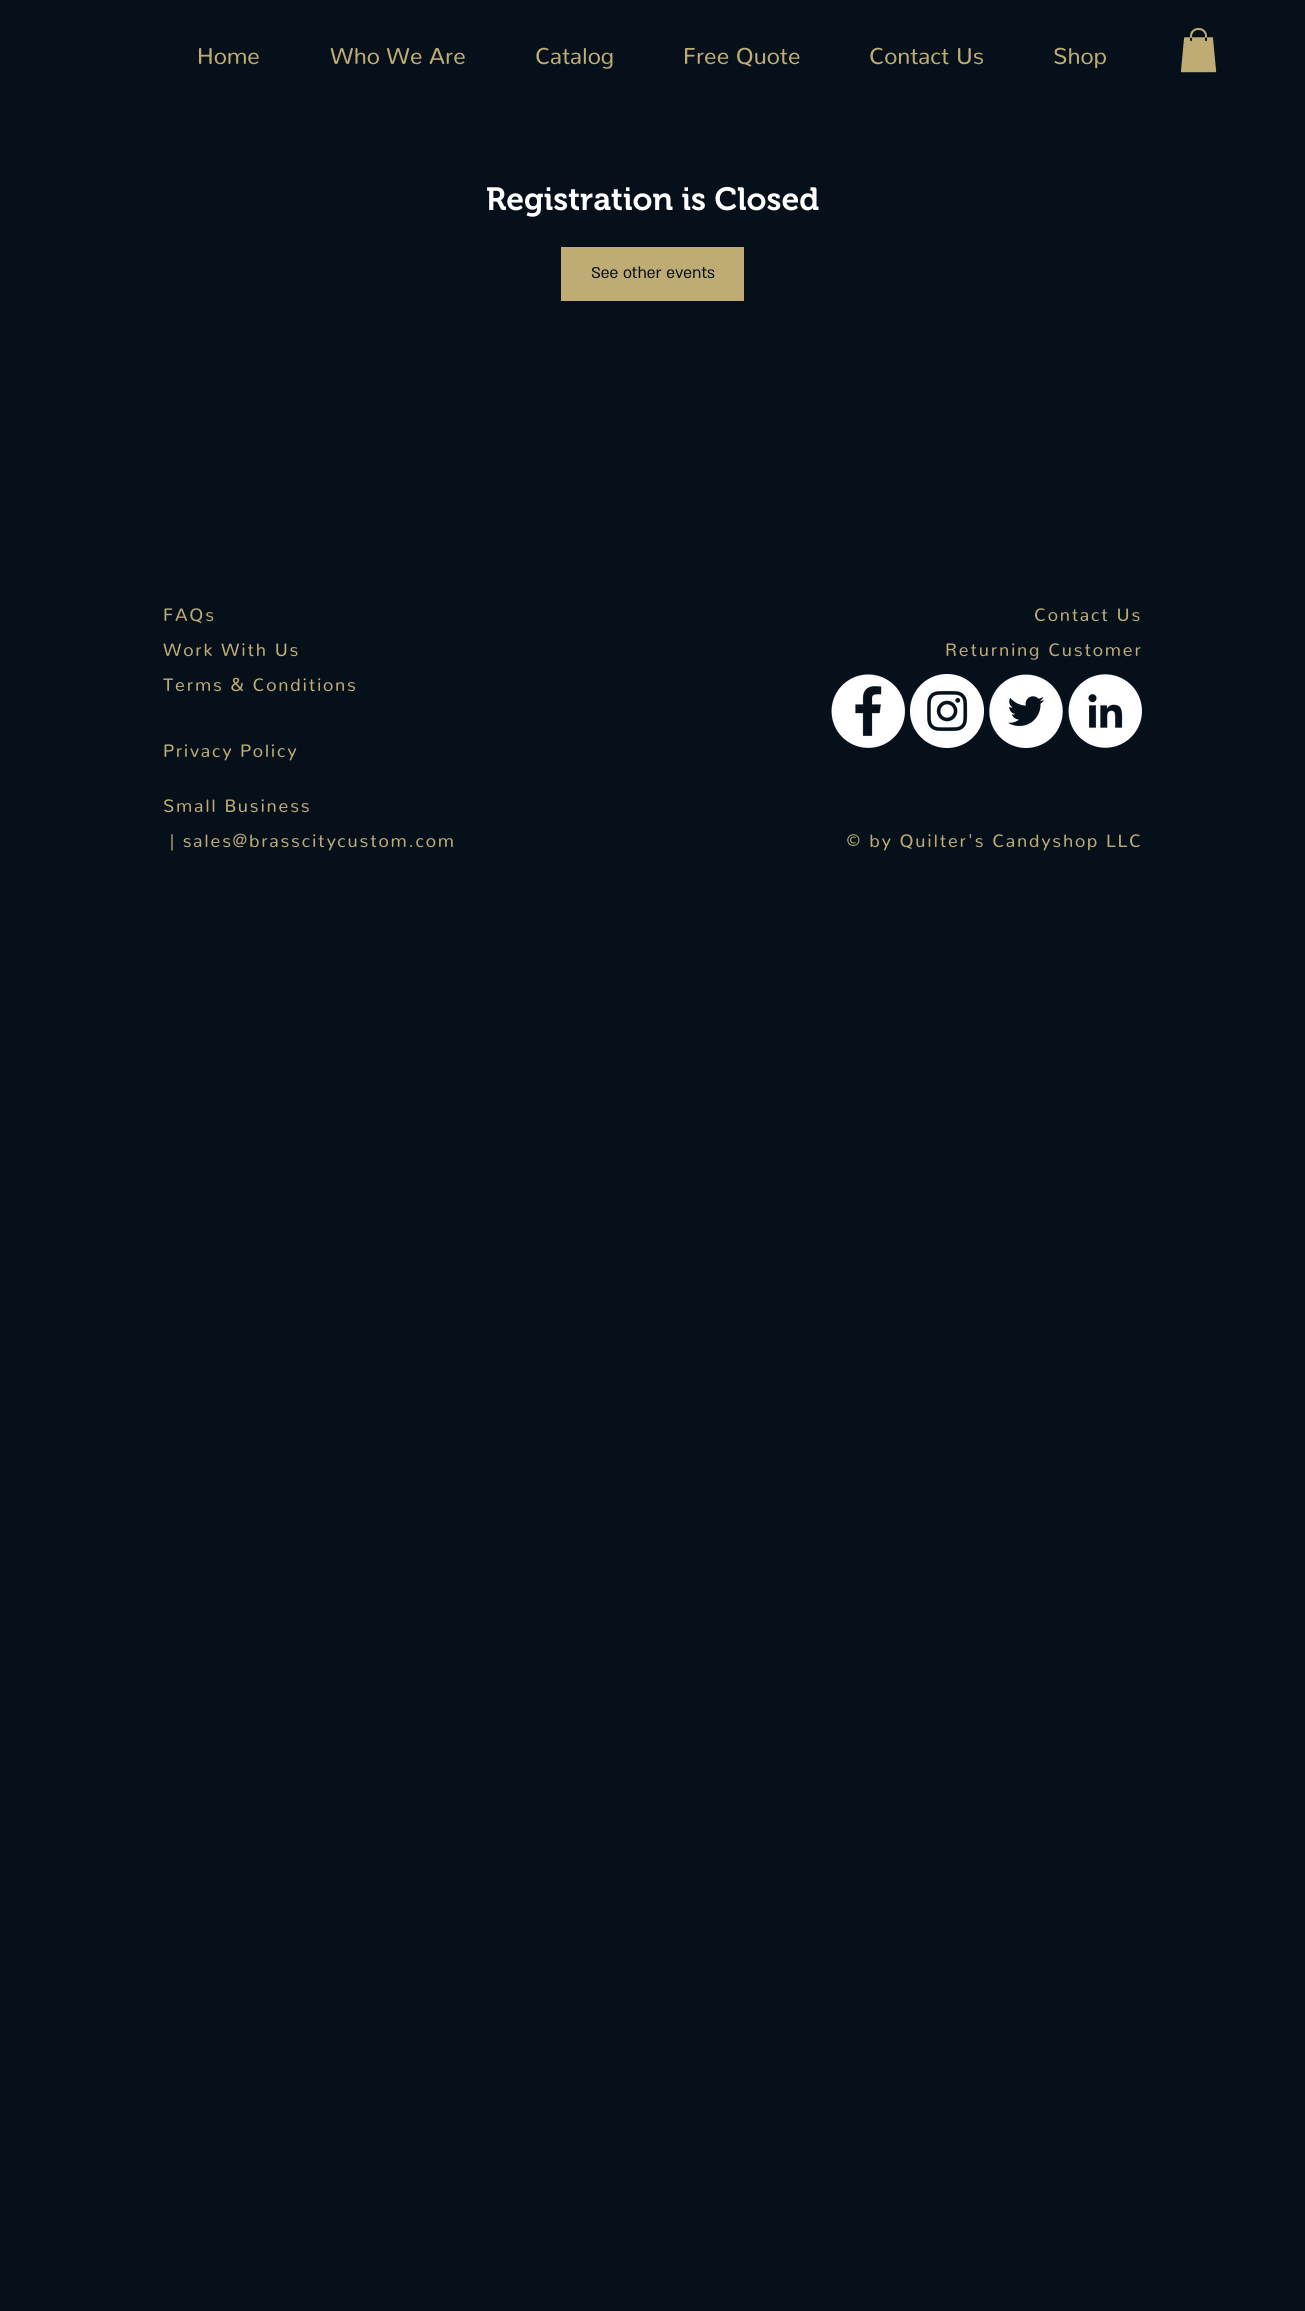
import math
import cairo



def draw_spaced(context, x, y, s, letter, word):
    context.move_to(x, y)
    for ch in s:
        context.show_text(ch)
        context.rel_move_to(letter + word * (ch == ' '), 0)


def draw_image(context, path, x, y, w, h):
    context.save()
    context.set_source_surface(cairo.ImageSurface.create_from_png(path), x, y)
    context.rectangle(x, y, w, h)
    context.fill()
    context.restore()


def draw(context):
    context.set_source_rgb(6 / 255, 16 / 255, 27 / 255)
    context.paint()
    draw_image(context, "images/1.png", 1180, 28, 37, 45)
    context.set_source_rgb(190 / 255, 172 / 255, 116 / 255)
    context.rectangle(561, 247, 183, 54)
    context.fill()
    draw_image(context, "images/2.png", 831, 674, 74, 74)
    draw_image(context, "images/3.png", 910, 674, 74, 74)
    draw_image(context, "images/4.png", 989, 674, 74, 74)
    draw_image(context, "images/5.png", 1068, 674, 74, 74)
    context.select_font_face("Nunito")
    context.set_font_size(23)
    context.move_to(197, 64)
    context.show_text("Home")
    context.move_to(330, 64)
    context.show_text("Who We Are")
    context.move_to(535, 64)
    context.show_text("Catalog")
    context.move_to(683, 64)
    context.show_text("Free Quote")
    context.move_to(869, 64)
    context.show_text("Contact Us")
    context.move_to(1053, 64)
    context.show_text("Shop")
    context.select_font_face("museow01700 SemiBold")
    context.set_font_size(32)
    context.set_source_rgb(1, 1, 1)
    context.move_to(486, 210)
    context.show_text("Registration is Closed")
    context.select_font_face("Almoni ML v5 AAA")
    context.set_font_size(18)
    context.set_source_rgb(6 / 255, 16 / 255, 27 / 255)
    context.move_to(591, 278)
    context.show_text("See other events")
    context.select_font_face("Nunito")
    context.set_source_rgb(190 / 255, 172 / 255, 116 / 255)
    draw_spaced(context, 163, 621, "FAQs", 1.8, 0)
    draw_spaced(context, 1034, 621, "Contact Us", 1.8, 0)
    draw_spaced(context, 163, 656, "Work With Us", 1.8, 0)
    draw_spaced(context, 945, 656, "Returning Customer", 1.8, 0)
    draw_spaced(context, 163, 691, "Terms & Conditions", 1.8, 0)
    draw_spaced(context, 163, 757, "Privacy Policy", 1.8, 0)
    draw_spaced(context, 163, 812, "Small Business", 1.8, 0)
    draw_spaced(context, 170, 847, "| sales@brasscitycustom.com", 1.8, 0)
    draw_spaced(context, 846, 847, "© by Quilter's Candyshop LLC", 1.8, 0)


surface = cairo.ImageSurface(cairo.Format.RGB24, 1305, 2311)
context = cairo.Context(surface)
options = cairo.FontOptions()
options.set_hint_metrics(cairo.HintMetrics.OFF)
options.set_hint_style(cairo.HintStyle.NONE)
context.set_font_options(options)
context.set_miter_limit(4)
draw(context)
surface.write_to_png("out.png")
